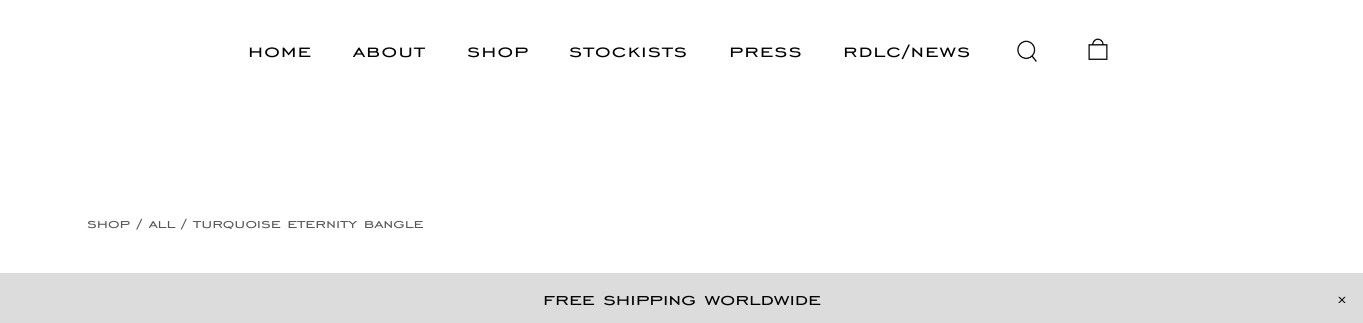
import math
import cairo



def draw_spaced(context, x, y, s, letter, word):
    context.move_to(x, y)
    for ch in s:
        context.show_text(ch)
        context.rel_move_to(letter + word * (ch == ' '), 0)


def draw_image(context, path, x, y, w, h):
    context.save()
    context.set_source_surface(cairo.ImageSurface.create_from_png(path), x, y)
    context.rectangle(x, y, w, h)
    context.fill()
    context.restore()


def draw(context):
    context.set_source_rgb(1, 1, 1)
    context.paint()
    draw_image(context, "images/1.png", 1017, 40, 20, 22)
    draw_image(context, "images/2.png", 1088, 38, 20, 22)
    context.set_source_rgb(220 / 255, 220 / 255, 220 / 255)
    context.rectangle(0, 273, 1363, 50)
    context.fill()
    context.select_font_face("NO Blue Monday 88")
    context.set_font_size(23)
    context.set_source_rgb(0, 0, 0)
    draw_spaced(context, 248, 57, "home", 1, 0)
    draw_spaced(context, 353, 57, "about", 1, 0)
    draw_spaced(context, 467, 57, "shop", 1, 0)
    draw_spaced(context, 569, 57, "stockists", 1, 0)
    draw_spaced(context, 729, 57, "press", 1, 0)
    draw_spaced(context, 843, 57, "rdlc/news", 1, 0)
    context.set_font_size(17)
    context.set_source_rgb(86 / 255, 86 / 255, 86 / 255)
    context.move_to(87, 228)
    context.show_text("shop / all")
    context.move_to(181, 228)
    context.show_text("/ turquoise eternity bangle")
    context.set_font_size(22)
    context.set_source_rgb(0, 0, 0)
    context.move_to(543, 305)
    context.show_text("free shipping worldwide")
    context.set_font_size(15)
    context.move_to(1338, 303)
    context.show_text("x")


surface = cairo.ImageSurface(cairo.Format.RGB24, 1363, 323)
context = cairo.Context(surface)
options = cairo.FontOptions()
options.set_hint_metrics(cairo.HintMetrics.OFF)
options.set_hint_style(cairo.HintStyle.NONE)
context.set_font_options(options)
context.set_miter_limit(4)
draw(context)
surface.write_to_png("out.png")
